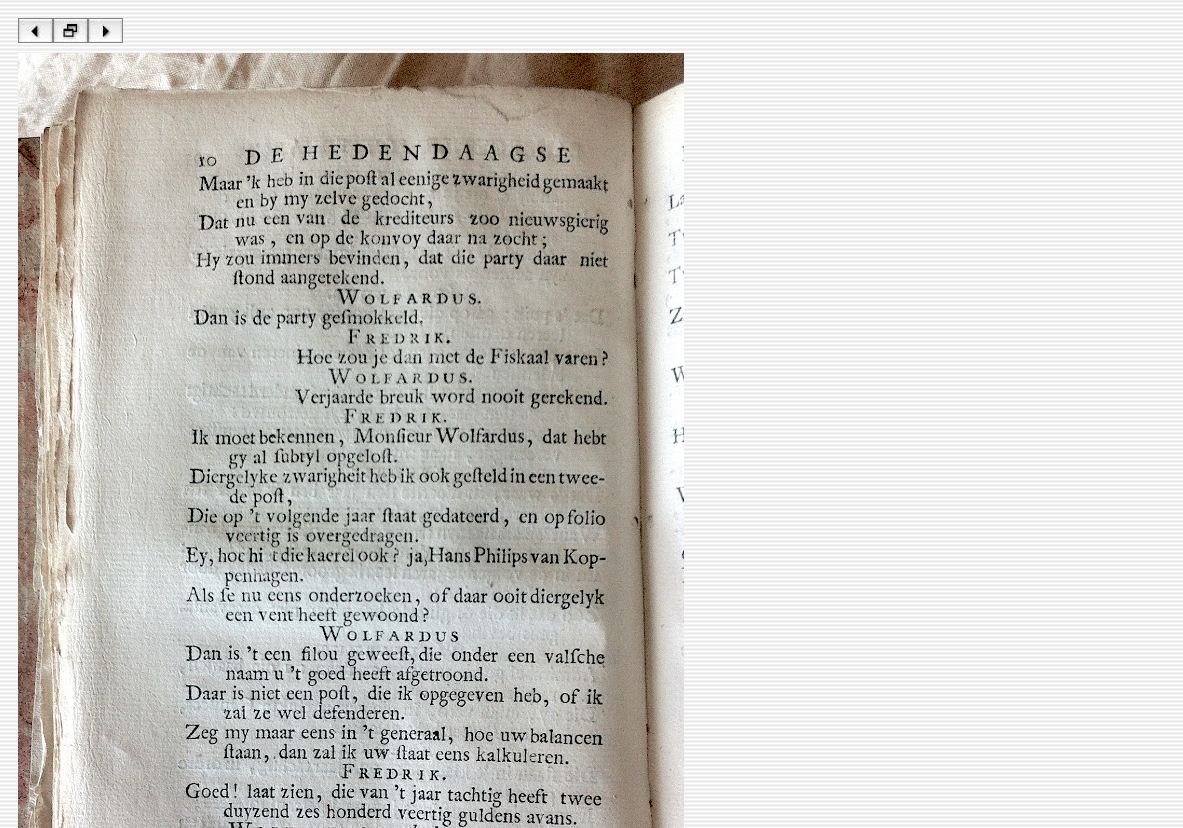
import math
import cairo



def draw_image(context, path, x, y, w, h):
    context.save()
    context.set_source_surface(cairo.ImageSurface.create_from_png(path), x, y)
    context.rectangle(x, y, w, h)
    context.fill()
    context.restore()


def draw(context):
    context.set_source_rgb(1, 1, 1)
    context.paint()
    draw_image(context, "images/1.png", 0, 0, 1183, 827)
    draw_image(context, "images/2.png", 18, 18, 35, 25)
    draw_image(context, "images/3.png", 53, 18, 35, 25)
    draw_image(context, "images/4.png", 88, 18, 35, 25)
    draw_image(context, "images/5.png", 18, 53, 666, 775)


surface = cairo.ImageSurface(cairo.Format.RGB24, 1183, 828)
context = cairo.Context(surface)
options = cairo.FontOptions()
options.set_hint_metrics(cairo.HintMetrics.OFF)
options.set_hint_style(cairo.HintStyle.NONE)
context.set_font_options(options)
context.set_miter_limit(4)
draw(context)
surface.write_to_png("out.png")
